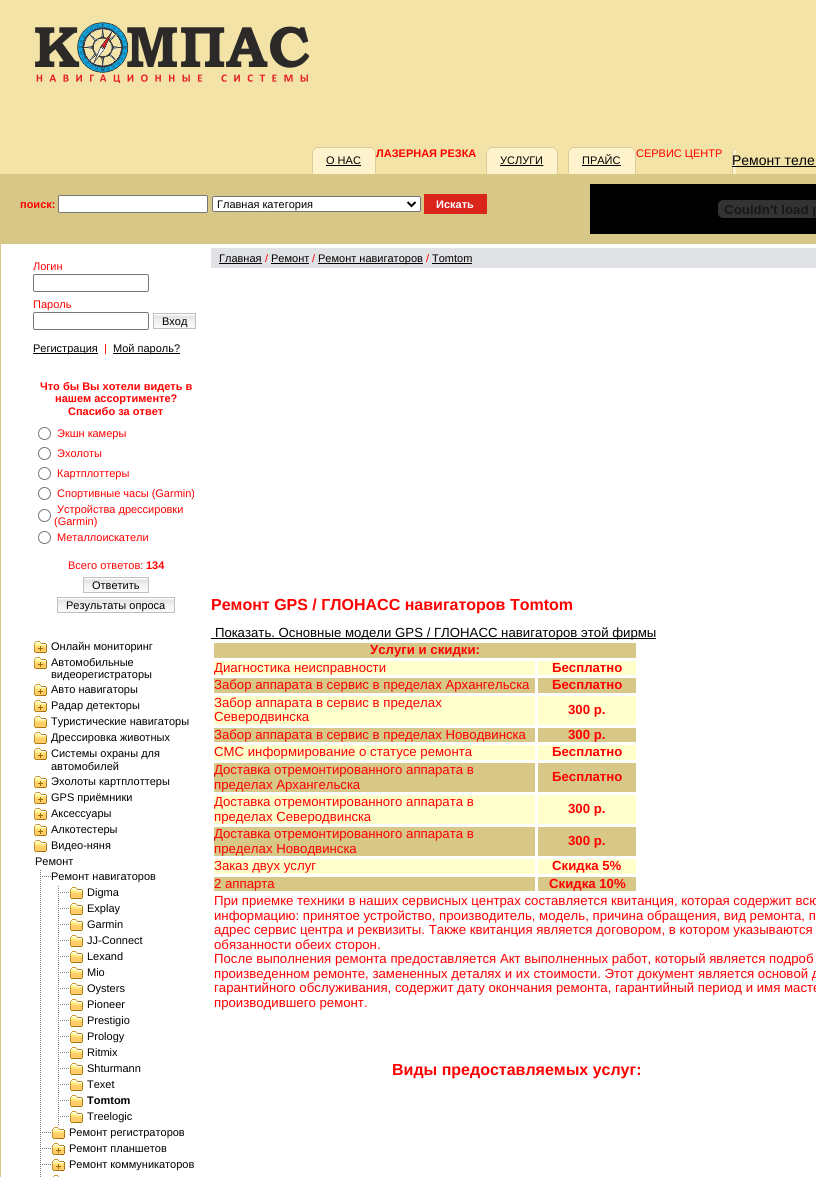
import math
import cairo



def rounded_rect(context, x, y, w, h, r):
    context.new_sub_path()
    for i, (u, v) in enumerate([(x + w - r, y + h - r), (x + r, y + h - r), (x + r, y + r), (x + w - r, y + r)]):
        context.arc(u, v, r, i * math.pi / 2, (i + 1) * math.pi / 2)
    context.close_path()


def draw_image(context, path, x, y, w, h):
    context.save()
    context.set_source_surface(cairo.ImageSurface.create_from_png(path), x, y)
    context.rectangle(x, y, w, h)
    context.fill()
    context.restore()


def draw(context):
    context.set_source_rgb(1, 1, 1)
    context.paint()
    draw_image(context, "images/1.png", 0, 0, 816, 174)
    draw_image(context, "images/2.png", 35, 22, 274, 61)
    draw_image(context, "images/3.png", 312, 148, 4, 26)
    draw_image(context, "images/4.png", 316, 147, 60, 27)
    context.set_source_rgb(0, 0, 0)
    context.rectangle(326, 165, 1, 1)
    context.fill()
    draw_image(context, "images/3.png", 486, 148, 4, 26)
    draw_image(context, "images/5.png", 490, 147, 68, 27)
    context.rectangle(500, 165, 1, 1)
    context.fill()
    draw_image(context, "images/3.png", 568, 148, 4, 26)
    draw_image(context, "images/6.png", 572, 147, 64, 27)
    context.rectangle(582, 165, 39, 1)
    context.fill()
    draw_image(context, "images/3.png", 732, 148, 4, 26)
    context.rectangle(732, 166, 84, 1)
    context.fill()
    context.set_source_rgb(216 / 255, 200 / 255, 136 / 255)
    context.rectangle(0, 174, 816, 70)
    context.fill()
    context.set_source_rgb(1, 1, 1)
    rounded_rect(context, 58.5, 195.5, 149, 17, 1.5)
    context.fill_preserve()
    context.set_source_rgb(118 / 255, 118 / 255, 118 / 255)
    context.set_line_width(1)
    context.stroke()
    context.set_source_rgb(1, 1, 1)
    rounded_rect(context, 212.5, 196.5, 208, 15, 1.5)
    context.fill_preserve()
    context.set_source_rgb(118 / 255, 118 / 255, 118 / 255)
    context.stroke()
    context.new_path()
    context.move_to(407.5, 202)
    context.line_to(411.5, 206)
    context.line_to(415.5, 202)
    context.set_source_rgb(0, 0, 0)
    context.set_line_width(2)
    context.stroke()
    context.set_source_rgb(218 / 255, 37 / 255, 29 / 255)
    context.rectangle(424, 194, 63, 20)
    context.fill()
    context.set_source_rgb(0, 0, 0)
    context.rectangle(590, 184, 226, 50)
    context.fill()
    draw_image(context, "images/7.png", 718, 200, 98, 18)
    context.set_source_rgb(216 / 255, 200 / 255, 136 / 255)
    context.rectangle(0, 244, 1, 933)
    context.fill()
    rounded_rect(context, 33.5, 274.5, 115, 17, 1.5)
    context.set_source_rgb(118 / 255, 118 / 255, 118 / 255)
    context.set_line_width(1)
    context.stroke()
    rounded_rect(context, 33.5, 312.5, 115, 17, 1.5)
    context.stroke()
    draw_image(context, "images/8.png", 154, 315, 41, 13)
    context.rectangle(153.5, 313.5, 42, 15)
    context.set_source_rgb(191 / 255, 191 / 255, 191 / 255)
    context.stroke()
    context.set_source_rgb(0, 0, 0)
    context.rectangle(33, 353, 65, 1)
    context.fill()
    context.rectangle(113, 353, 67, 1)
    context.fill()
    context.arc(44.5, 433.5, 6, 0, 2 * math.pi)
    context.set_source_rgb(118 / 255, 118 / 255, 118 / 255)
    context.stroke()
    context.arc(44.5, 453.5, 6, 0, 2 * math.pi)
    context.stroke()
    context.arc(44.5, 473.5, 6, 0, 2 * math.pi)
    context.stroke()
    context.arc(44.5, 493.5, 6, 0, 2 * math.pi)
    context.stroke()
    context.arc(44.5, 515.5, 6, 0, 2 * math.pi)
    context.stroke()
    context.arc(44.5, 537.5, 6, 0, 2 * math.pi)
    context.stroke()
    draw_image(context, "images/9.png", 84, 579, 64, 13)
    context.rectangle(83.5, 577.5, 65, 15)
    context.set_source_rgb(191 / 255, 191 / 255, 191 / 255)
    context.stroke()
    draw_image(context, "images/10.png", 58, 599, 116, 13)
    context.rectangle(57.5, 597.5, 117, 15)
    context.stroke()
    draw_image(context, "images/11.png", 34, 641, 13, 12)
    draw_image(context, "images/11.png", 34, 657, 13, 12)
    draw_image(context, "images/11.png", 34, 684, 13, 12)
    draw_image(context, "images/11.png", 34, 700, 13, 12)
    draw_image(context, "images/12.png", 34, 716, 13, 12)
    draw_image(context, "images/12.png", 34, 732, 13, 12)
    draw_image(context, "images/11.png", 34, 748, 13, 12)
    draw_image(context, "images/11.png", 34, 776, 13, 12)
    draw_image(context, "images/11.png", 34, 792, 13, 12)
    draw_image(context, "images/11.png", 34, 808, 13, 12)
    draw_image(context, "images/11.png", 34, 824, 13, 12)
    draw_image(context, "images/12.png", 34, 840, 13, 12)
    draw_image(context, "images/13.png", 40, 870, 1, 15)
    draw_image(context, "images/14.png", 42, 876, 9, 1)
    draw_image(context, "images/13.png", 40, 886, 1, 15)
    draw_image(context, "images/13.png", 58, 886, 1, 15)
    draw_image(context, "images/14.png", 60, 892, 9, 1)
    draw_image(context, "images/12.png", 70, 887, 13, 12)
    draw_image(context, "images/13.png", 40, 902, 1, 15)
    draw_image(context, "images/13.png", 58, 902, 1, 15)
    draw_image(context, "images/14.png", 60, 908, 9, 1)
    draw_image(context, "images/12.png", 70, 903, 13, 12)
    draw_image(context, "images/13.png", 40, 918, 1, 15)
    draw_image(context, "images/13.png", 58, 918, 1, 15)
    draw_image(context, "images/14.png", 60, 924, 9, 1)
    draw_image(context, "images/12.png", 70, 919, 13, 12)
    draw_image(context, "images/13.png", 40, 934, 1, 15)
    draw_image(context, "images/13.png", 58, 934, 1, 15)
    draw_image(context, "images/14.png", 60, 940, 9, 1)
    draw_image(context, "images/12.png", 70, 935, 13, 12)
    draw_image(context, "images/13.png", 40, 950, 1, 15)
    draw_image(context, "images/13.png", 58, 950, 1, 15)
    draw_image(context, "images/14.png", 60, 956, 9, 1)
    draw_image(context, "images/12.png", 70, 951, 13, 12)
    draw_image(context, "images/13.png", 40, 966, 1, 15)
    draw_image(context, "images/13.png", 58, 966, 1, 15)
    draw_image(context, "images/14.png", 60, 972, 9, 1)
    draw_image(context, "images/12.png", 70, 967, 13, 12)
    draw_image(context, "images/13.png", 40, 982, 1, 15)
    draw_image(context, "images/13.png", 58, 982, 1, 15)
    draw_image(context, "images/14.png", 60, 988, 9, 1)
    draw_image(context, "images/12.png", 70, 983, 13, 12)
    draw_image(context, "images/13.png", 40, 998, 1, 15)
    draw_image(context, "images/13.png", 58, 998, 1, 15)
    draw_image(context, "images/14.png", 60, 1004, 9, 1)
    draw_image(context, "images/12.png", 70, 999, 13, 12)
    draw_image(context, "images/13.png", 40, 1014, 1, 15)
    draw_image(context, "images/13.png", 58, 1014, 1, 15)
    draw_image(context, "images/14.png", 60, 1020, 9, 1)
    draw_image(context, "images/12.png", 70, 1015, 13, 12)
    draw_image(context, "images/13.png", 40, 1030, 1, 15)
    draw_image(context, "images/13.png", 58, 1030, 1, 15)
    draw_image(context, "images/14.png", 60, 1036, 9, 1)
    draw_image(context, "images/12.png", 70, 1031, 13, 12)
    draw_image(context, "images/13.png", 40, 1046, 1, 15)
    draw_image(context, "images/13.png", 58, 1046, 1, 15)
    draw_image(context, "images/14.png", 60, 1052, 9, 1)
    draw_image(context, "images/12.png", 70, 1047, 13, 12)
    draw_image(context, "images/13.png", 40, 1062, 1, 15)
    draw_image(context, "images/13.png", 58, 1062, 1, 15)
    draw_image(context, "images/14.png", 60, 1068, 9, 1)
    draw_image(context, "images/12.png", 70, 1063, 13, 12)
    draw_image(context, "images/13.png", 40, 1078, 1, 15)
    draw_image(context, "images/13.png", 58, 1078, 1, 15)
    draw_image(context, "images/14.png", 60, 1084, 9, 1)
    draw_image(context, "images/12.png", 70, 1079, 13, 12)
    draw_image(context, "images/13.png", 40, 1094, 1, 15)
    draw_image(context, "images/13.png", 58, 1094, 1, 15)
    draw_image(context, "images/14.png", 60, 1100, 9, 1)
    draw_image(context, "images/12.png", 70, 1095, 13, 12)
    draw_image(context, "images/13.png", 40, 1110, 1, 15)
    draw_image(context, "images/13.png", 58, 1110, 1, 15)
    draw_image(context, "images/14.png", 60, 1116, 9, 1)
    draw_image(context, "images/12.png", 70, 1111, 13, 12)
    draw_image(context, "images/13.png", 40, 1126, 1, 15)
    draw_image(context, "images/14.png", 42, 1132, 9, 1)
    draw_image(context, "images/12.png", 52, 1127, 13, 12)
    draw_image(context, "images/13.png", 40, 1142, 1, 15)
    draw_image(context, "images/14.png", 42, 1148, 9, 1)
    draw_image(context, "images/11.png", 52, 1143, 13, 12)
    draw_image(context, "images/13.png", 40, 1158, 1, 15)
    draw_image(context, "images/14.png", 42, 1164, 9, 1)
    draw_image(context, "images/11.png", 52, 1159, 13, 12)
    draw_image(context, "images/15.png", 40, 1174, 1, 3)
    draw_image(context, "images/16.png", 53, 1175, 6, 2)
    context.set_source_rgb(225 / 255, 226 / 255, 229 / 255)
    context.rectangle(211, 248, 605, 20)
    context.fill()
    context.set_source_rgb(0, 0, 0)
    context.rectangle(219, 263, 43, 1)
    context.fill()
    context.rectangle(271, 263, 38, 1)
    context.fill()
    context.rectangle(318, 263, 105, 1)
    context.fill()
    context.rectangle(432, 263, 40, 1)
    context.fill()
    context.rectangle(211, 638, 445, 1)
    context.fill()
    context.set_source_rgb(216 / 255, 200 / 255, 136 / 255)
    context.rectangle(214, 643, 422, 15)
    context.fill()
    context.set_source_rgb(1, 1, 204 / 255)
    context.rectangle(214, 661, 321, 14)
    context.fill()
    context.rectangle(538, 661, 98, 14)
    context.fill()
    context.set_source_rgb(216 / 255, 200 / 255, 136 / 255)
    context.rectangle(214, 678, 321, 15)
    context.fill()
    context.rectangle(538, 678, 98, 15)
    context.fill()
    context.set_source_rgb(1, 1, 204 / 255)
    context.rectangle(214, 696, 321, 29)
    context.fill()
    context.rectangle(538, 696, 98, 29)
    context.fill()
    context.set_source_rgb(216 / 255, 200 / 255, 136 / 255)
    context.rectangle(214, 728, 321, 14)
    context.fill()
    context.rectangle(538, 728, 98, 14)
    context.fill()
    context.set_source_rgb(1, 1, 204 / 255)
    context.rectangle(214, 745, 321, 15)
    context.fill()
    context.rectangle(538, 745, 98, 15)
    context.fill()
    context.set_source_rgb(216 / 255, 200 / 255, 136 / 255)
    context.rectangle(214, 763, 321, 29)
    context.fill()
    context.rectangle(538, 763, 98, 29)
    context.fill()
    context.set_source_rgb(1, 1, 204 / 255)
    context.rectangle(214, 795, 321, 29)
    context.fill()
    context.rectangle(538, 795, 98, 29)
    context.fill()
    context.set_source_rgb(216 / 255, 200 / 255, 136 / 255)
    context.rectangle(214, 827, 321, 29)
    context.fill()
    context.rectangle(538, 827, 98, 29)
    context.fill()
    context.set_source_rgb(1, 1, 204 / 255)
    context.rectangle(214, 859, 321, 15)
    context.fill()
    context.rectangle(538, 859, 98, 15)
    context.fill()
    context.set_source_rgb(216 / 255, 200 / 255, 136 / 255)
    context.rectangle(214, 877, 321, 14)
    context.fill()
    context.rectangle(538, 877, 98, 14)
    context.fill()
    context.select_font_face("Liberation Sans")
    context.set_font_size(11)
    context.set_source_rgb(0, 0, 0)
    context.move_to(326, 164)
    context.show_text("О НАС")
    context.select_font_face("Liberation Sans", cairo.FontSlant.NORMAL, cairo.FontWeight.BOLD)
    context.set_source_rgb(1, 0, 0)
    context.move_to(376, 157)
    context.show_text("ЛАЗЕРНАЯ РЕЗКА")
    context.select_font_face("Liberation Sans")
    context.set_source_rgb(0, 0, 0)
    context.move_to(500, 164)
    context.show_text("УСЛУГИ")
    context.move_to(582, 164)
    context.show_text("ПРАЙС")
    context.set_source_rgb(1, 0, 0)
    context.move_to(636, 157)
    context.show_text("СЕРВИС ЦЕНТР")
    context.set_font_size(14)
    context.set_source_rgb(0, 0, 0)
    context.move_to(732, 165)
    context.show_text("Ремонт теле")
    context.select_font_face("Liberation Sans", cairo.FontSlant.NORMAL, cairo.FontWeight.BOLD)
    context.set_font_size(11)
    context.set_source_rgb(1, 0, 0)
    context.move_to(20, 208)
    context.show_text("поиск:")
    context.select_font_face("Liberation Sans")
    context.set_source_rgb(0, 0, 0)
    context.move_to(217, 208)
    context.show_text("Главная категория")
    context.select_font_face("Liberation Sans", cairo.FontSlant.NORMAL, cairo.FontWeight.BOLD)
    context.set_source_rgb(1, 1, 1)
    context.move_to(436, 208)
    context.show_text("Искать")
    context.select_font_face("Liberation Sans")
    context.set_source_rgb(1, 0, 0)
    context.move_to(33, 270)
    context.show_text("Логин")
    context.move_to(33, 308)
    context.show_text("Пароль")
    context.set_source_rgb(0, 0, 0)
    context.move_to(162, 325)
    context.show_text("Вход")
    context.move_to(33, 352)
    context.show_text("Регистрация")
    context.set_source_rgb(1, 0, 0)
    context.move_to(104, 352)
    context.show_text("|")
    context.set_source_rgb(0, 0, 0)
    context.move_to(113, 352)
    context.show_text("Мой пароль?")
    context.select_font_face("Liberation Sans", cairo.FontSlant.NORMAL, cairo.FontWeight.BOLD)
    context.set_source_rgb(1, 0, 0)
    context.move_to(40, 390)
    context.show_text("Что бы Вы хотели видеть в")
    context.move_to(55, 402)
    context.show_text("нашем ассортименте?")
    context.move_to(68, 415)
    context.show_text("Спасибо за ответ")
    context.select_font_face("Liberation Sans")
    context.move_to(57, 437)
    context.show_text("Экшн камеры")
    context.move_to(57, 457)
    context.show_text("Эхолоты")
    context.move_to(57, 477)
    context.show_text("Картплоттеры")
    context.move_to(57, 497)
    context.show_text("Спортивные часы (Garmin)")
    context.move_to(57, 513)
    context.show_text("Устройства дрессировки")
    context.move_to(54, 525)
    context.show_text("(Garmin)")
    context.move_to(57, 541)
    context.show_text("Металлоискатели")
    context.move_to(68, 569)
    context.show_text("Всего ответов:")
    context.select_font_face("Liberation Sans", cairo.FontSlant.NORMAL, cairo.FontWeight.BOLD)
    context.move_to(146, 569)
    context.show_text("134")
    context.select_font_face("Liberation Sans")
    context.set_source_rgb(0, 0, 0)
    context.move_to(92, 589)
    context.show_text("Ответить")
    context.move_to(66, 609)
    context.show_text("Результаты опроса")
    context.move_to(51, 650)
    context.show_text("Онлайн мониторинг")
    context.move_to(51, 666)
    context.show_text("Автомобильные")
    context.move_to(51, 678)
    context.show_text("видеорегистраторы")
    context.move_to(51, 693)
    context.show_text("Авто навигаторы")
    context.move_to(51, 709)
    context.show_text("Радар детекторы")
    context.move_to(51, 725)
    context.show_text("Туристические навигаторы")
    context.move_to(51, 741)
    context.show_text("Дрессировка животных")
    context.move_to(51, 757)
    context.show_text("Системы охраны для")
    context.move_to(51, 770)
    context.show_text("автомобилей")
    context.move_to(51, 785)
    context.show_text("Эхолоты картплоттеры")
    context.move_to(51, 801)
    context.show_text("GPS приёмники")
    context.move_to(51, 817)
    context.show_text("Аксессуары")
    context.move_to(51, 833)
    context.show_text("Алкотестеры")
    context.move_to(51, 849)
    context.show_text("Видео-няня")
    context.move_to(35, 865)
    context.show_text("Ремонт")
    context.move_to(51, 880)
    context.show_text("Ремонт навигаторов")
    context.move_to(87, 896)
    context.show_text("Digma")
    context.move_to(87, 912)
    context.show_text("Explay")
    context.move_to(87, 928)
    context.show_text("Garmin")
    context.move_to(87, 944)
    context.show_text("JJ-Connect")
    context.move_to(87, 960)
    context.show_text("Lexand")
    context.move_to(87, 976)
    context.show_text("Mio")
    context.move_to(87, 992)
    context.show_text("Oysters")
    context.move_to(87, 1008)
    context.show_text("Pioneer")
    context.move_to(87, 1024)
    context.show_text("Prestigio")
    context.move_to(87, 1040)
    context.show_text("Prology")
    context.move_to(87, 1056)
    context.show_text("Ritmix")
    context.move_to(87, 1072)
    context.show_text("Shturmann")
    context.move_to(87, 1088)
    context.show_text("Texet")
    context.select_font_face("Liberation Sans", cairo.FontSlant.NORMAL, cairo.FontWeight.BOLD)
    context.move_to(87, 1104)
    context.show_text("Tomtom")
    context.select_font_face("Liberation Sans")
    context.move_to(87, 1120)
    context.show_text("Treelogic")
    context.move_to(69, 1136)
    context.show_text("Ремонт регистраторов")
    context.move_to(69, 1152)
    context.show_text("Ремонт планшетов")
    context.move_to(69, 1168)
    context.show_text("Ремонт коммуникаторов")
    context.move_to(219, 262)
    context.show_text("Главная")
    context.set_source_rgb(1, 0, 0)
    context.move_to(265, 262)
    context.show_text("/")
    context.set_source_rgb(0, 0, 0)
    context.move_to(271, 262)
    context.show_text("Ремонт")
    context.set_source_rgb(1, 0, 0)
    context.move_to(312, 262)
    context.show_text("/")
    context.set_source_rgb(0, 0, 0)
    context.move_to(318, 262)
    context.show_text("Ремонт навигаторов")
    context.set_source_rgb(1, 0, 0)
    context.move_to(426, 262)
    context.show_text("/")
    context.set_source_rgb(0, 0, 0)
    context.move_to(432, 262)
    context.show_text("Tomtom")
    context.select_font_face("Liberation Sans", cairo.FontSlant.NORMAL, cairo.FontWeight.BOLD)
    context.set_font_size(16)
    context.set_source_rgb(1, 0, 0)
    context.move_to(211, 610)
    context.show_text("Ремонт GPS / ГЛОНАСС навигаторов Tomtom")
    context.select_font_face("Liberation Sans")
    context.set_font_size(13.2)
    context.set_source_rgb(0, 0, 0)
    context.move_to(215, 637)
    context.show_text("Показать. Основные модели GPS / ГЛОНАСС навигаторов этой фирмы")
    context.select_font_face("Liberation Sans", cairo.FontSlant.NORMAL, cairo.FontWeight.BOLD)
    context.set_source_rgb(1, 0, 0)
    context.move_to(370, 654)
    context.show_text("Услуги и скидки:")
    context.select_font_face("Liberation Sans")
    context.move_to(214, 672)
    context.show_text("Диагностика неисправности")
    context.select_font_face("Liberation Sans", cairo.FontSlant.NORMAL, cairo.FontWeight.BOLD)
    context.move_to(552, 672)
    context.show_text("Бесплатно")
    context.select_font_face("Liberation Sans")
    context.move_to(214, 689)
    context.show_text("Забор аппарата в сервис в пределах Архангельска")
    context.select_font_face("Liberation Sans", cairo.FontSlant.NORMAL, cairo.FontWeight.BOLD)
    context.move_to(552, 689)
    context.show_text("Бесплатно")
    context.select_font_face("Liberation Sans")
    context.move_to(214, 707)
    context.show_text("Забор аппарата в сервис в пределах")
    context.move_to(214, 721)
    context.show_text("Северодвинска")
    context.select_font_face("Liberation Sans", cairo.FontSlant.NORMAL, cairo.FontWeight.BOLD)
    context.move_to(568, 714)
    context.show_text("300 р.")
    context.select_font_face("Liberation Sans")
    context.move_to(214, 739)
    context.show_text("Забор аппарата в сервис в пределах Новодвинска")
    context.select_font_face("Liberation Sans", cairo.FontSlant.NORMAL, cairo.FontWeight.BOLD)
    context.move_to(568, 739)
    context.show_text("300 р.")
    context.select_font_face("Liberation Sans")
    context.move_to(214, 756)
    context.show_text("СМС информирование о статусе ремонта")
    context.select_font_face("Liberation Sans", cairo.FontSlant.NORMAL, cairo.FontWeight.BOLD)
    context.move_to(552, 756)
    context.show_text("Бесплатно")
    context.select_font_face("Liberation Sans")
    context.move_to(214, 774)
    context.show_text("Доставка отремонтированного аппарата в")
    context.move_to(214, 789)
    context.show_text("пределах Архангельска")
    context.select_font_face("Liberation Sans", cairo.FontSlant.NORMAL, cairo.FontWeight.BOLD)
    context.move_to(552, 781)
    context.show_text("Бесплатно")
    context.select_font_face("Liberation Sans")
    context.move_to(214, 806)
    context.show_text("Доставка отремонтированного аппарата в")
    context.move_to(214, 821)
    context.show_text("пределах Северодвинска")
    context.select_font_face("Liberation Sans", cairo.FontSlant.NORMAL, cairo.FontWeight.BOLD)
    context.move_to(568, 813)
    context.show_text("300 р.")
    context.select_font_face("Liberation Sans")
    context.move_to(214, 838)
    context.show_text("Доставка отремонтированного аппарата в")
    context.move_to(214, 853)
    context.show_text("пределах Новодвинска")
    context.select_font_face("Liberation Sans", cairo.FontSlant.NORMAL, cairo.FontWeight.BOLD)
    context.move_to(568, 845)
    context.show_text("300 р.")
    context.select_font_face("Liberation Sans")
    context.move_to(214, 870)
    context.show_text("Заказ двух услуг")
    context.select_font_face("Liberation Sans", cairo.FontSlant.NORMAL, cairo.FontWeight.BOLD)
    context.move_to(552, 870)
    context.show_text("Скидка 5%")
    context.select_font_face("Liberation Sans")
    context.move_to(214, 888)
    context.show_text("2 аппарта")
    context.select_font_face("Liberation Sans", cairo.FontSlant.NORMAL, cairo.FontWeight.BOLD)
    context.move_to(549, 888)
    context.show_text("Скидка 10%")
    context.select_font_face("Liberation Sans")
    context.move_to(214, 905)
    context.show_text("При приемке техники в наших сервисных центрах составляется квитанция, которая содержит всю")
    context.move_to(214, 920)
    context.show_text("информацию: принятое устройство, производитель, модель, причина обращения, вид ремонта, п")
    context.move_to(214, 934)
    context.show_text("адрес сервис центра и реквизиты. Также квитанция является договором, в котором указываются")
    context.move_to(214, 949)
    context.show_text("обязанности обеих сторон.")
    context.move_to(214, 963)
    context.show_text("После выполнения ремонта предоставляется Акт выполненных работ, который является подроб")
    context.move_to(214, 978)
    context.show_text("произведенном ремонте, замененных деталях и их стоимости. Этот документ является основой д")
    context.move_to(214, 992)
    context.show_text("гарантийного обслуживания, содержит дату окончания ремонта, гарантийный период и имя масте")
    context.move_to(214, 1007)
    context.show_text("производившего ремонт.")
    context.select_font_face("Liberation Sans", cairo.FontSlant.NORMAL, cairo.FontWeight.BOLD)
    context.set_font_size(16)
    context.move_to(392, 1075)
    context.show_text("Виды предоставляемых услуг:")


surface = cairo.ImageSurface(cairo.Format.RGB24, 816, 1177)
context = cairo.Context(surface)
options = cairo.FontOptions()
options.set_hint_metrics(cairo.HintMetrics.OFF)
options.set_hint_style(cairo.HintStyle.NONE)
context.set_font_options(options)
context.set_miter_limit(4)
draw(context)
surface.write_to_png("out.png")
